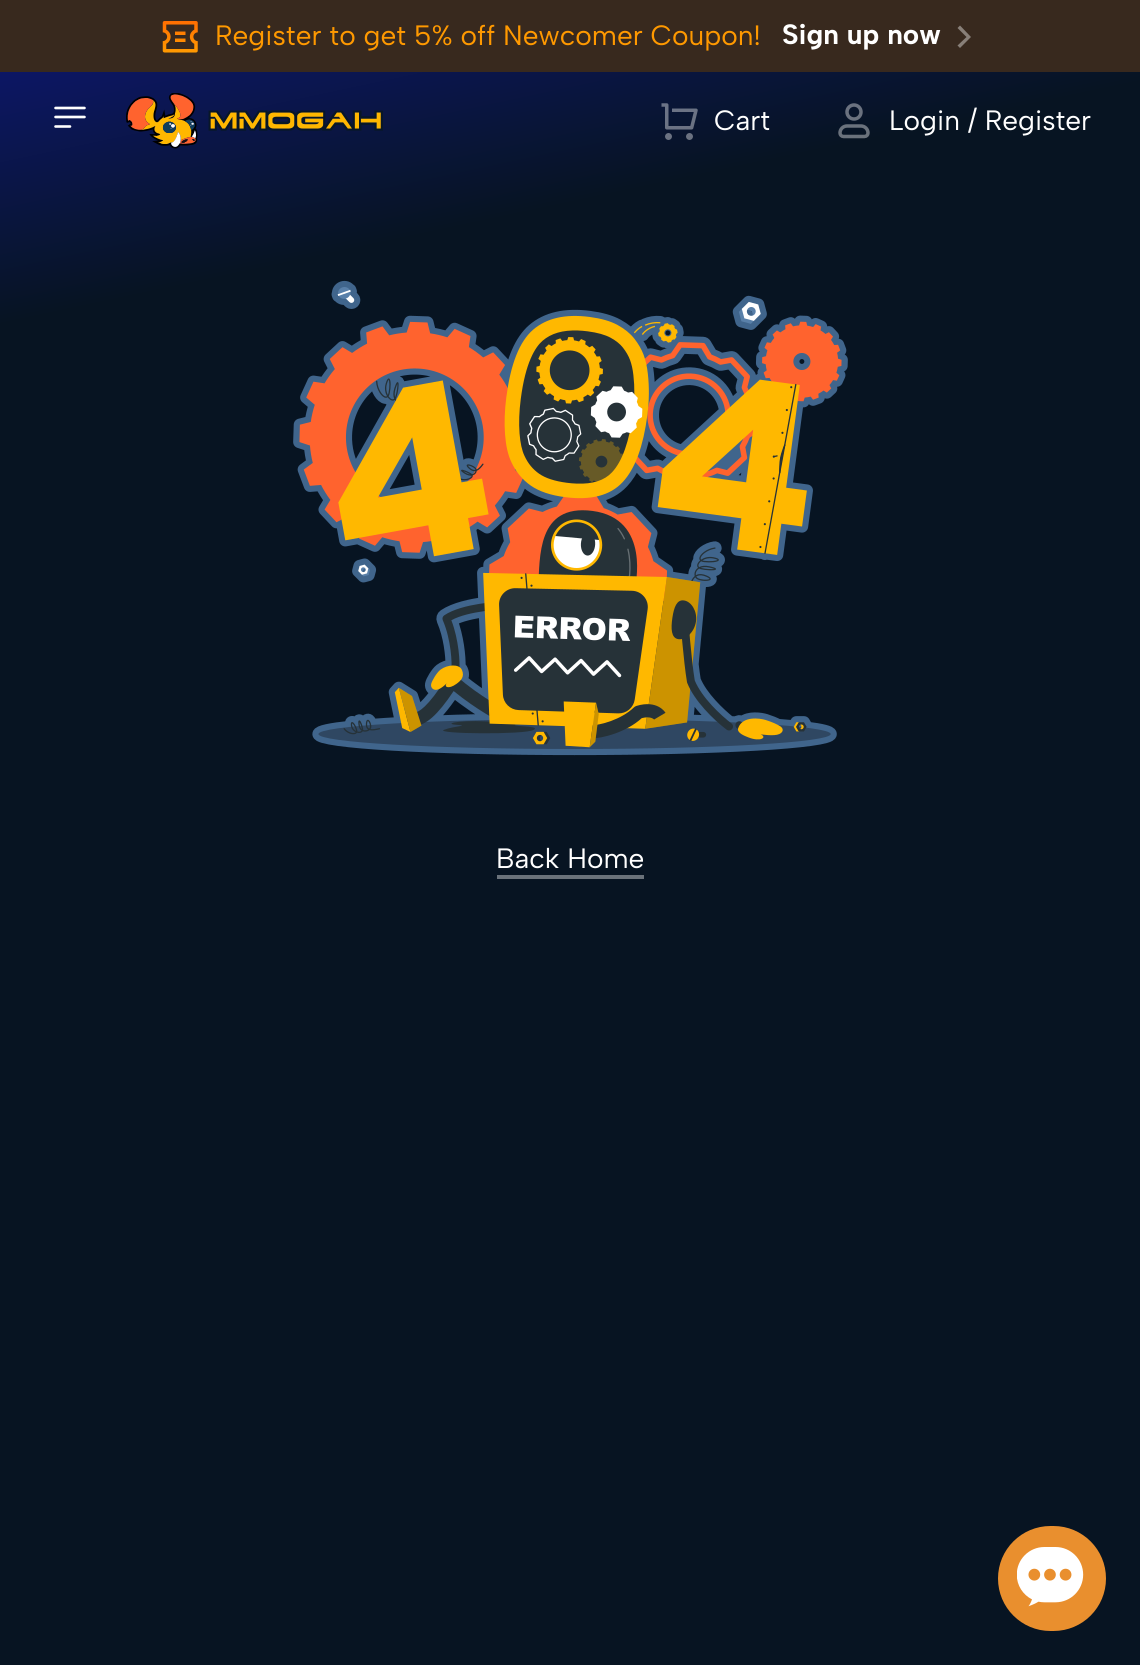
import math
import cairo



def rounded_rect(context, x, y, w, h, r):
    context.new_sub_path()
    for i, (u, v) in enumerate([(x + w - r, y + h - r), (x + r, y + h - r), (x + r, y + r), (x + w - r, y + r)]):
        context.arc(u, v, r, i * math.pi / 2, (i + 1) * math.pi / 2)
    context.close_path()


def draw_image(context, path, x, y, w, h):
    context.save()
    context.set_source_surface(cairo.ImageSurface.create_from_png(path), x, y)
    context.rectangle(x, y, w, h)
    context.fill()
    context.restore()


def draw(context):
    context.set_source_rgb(1, 1, 1)
    context.paint()
    gradient = cairo.LinearGradient(376, -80, 765, 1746)
    gradient.add_color_stop_rgba(0, 14 / 255, 23 / 255, 119 / 255, 1)
    gradient.add_color_stop_rgba(0.17, 7 / 255, 20 / 255, 34 / 255, 1)
    context.set_source(gradient)
    context.rectangle(0, 72, 1140, 1593)
    context.fill()
    context.set_source_rgb(56 / 255, 41 / 255, 30 / 255)
    context.rectangle(0, 0, 1140, 72)
    context.fill()
    draw_image(context, "images/1.png", 162, 21, 36, 32)
    context.set_source_rgb(136 / 255, 127 / 255, 120 / 255)
    context.new_path()
    context.move_to(966.5, 37)
    context.line_to(957.5, 28)
    context.line_to(960, 25.5)
    context.line_to(971, 37)
    context.line_to(960, 48)
    context.line_to(957.5, 45.5)
    context.close_path()
    context.fill()
    context.new_path()
    context.move_to(55.5, 108)
    context.line_to(84.5, 108)
    context.move_to(55.5, 117)
    context.line_to(84.5, 117)
    context.move_to(55.5, 126.5)
    context.line_to(70, 126.5)
    context.set_source_rgb(1, 1, 1)
    context.set_line_width(2.6)
    context.set_line_cap(cairo.LineCap.ROUND)
    context.set_line_join(cairo.LineJoin.ROUND)
    context.stroke()
    draw_image(context, "images/2.png", 126, 93, 72, 56)
    draw_image(context, "images/3.png", 208, 110, 175, 21)
    draw_image(context, "images/4.png", 661, 103, 37, 37)
    draw_image(context, "images/5.png", 838, 103, 32, 36)
    draw_image(context, "images/6.png", 293, 280, 555, 476)
    context.set_source_rgb(106 / 255, 114 / 255, 122 / 255)
    context.rectangle(497, 875, 147, 4)
    context.fill()
    context.set_source_rgb(233 / 255, 143 / 255, 46 / 255)
    rounded_rect(context, 998, 1526, 108, 105, 52.5)
    context.fill()
    draw_image(context, "images/7.png", 1017, 1547, 67, 60)
    context.select_font_face("Albert Sans")
    context.set_font_size(28)
    context.set_source_rgb(1, 153 / 255, 0)
    context.move_to(215, 45)
    context.show_text("Register to get 5% off Newcomer Coupon!")
    context.select_font_face("Albert Sans", cairo.FontSlant.NORMAL, cairo.FontWeight.BOLD)
    context.set_source_rgb(1, 1, 1)
    context.move_to(782, 44)
    context.show_text("Sign up now")
    context.select_font_face("Albert Sans")
    context.move_to(714, 130)
    context.show_text("Cart")
    context.move_to(889, 130)
    context.show_text("Login / Register")
    context.move_to(496, 868)
    context.show_text("Back Home")


surface = cairo.ImageSurface(cairo.Format.RGB24, 1140, 1665)
context = cairo.Context(surface)
options = cairo.FontOptions()
options.set_hint_metrics(cairo.HintMetrics.OFF)
options.set_hint_style(cairo.HintStyle.NONE)
context.set_font_options(options)
context.set_miter_limit(4)
draw(context)
surface.write_to_png("out.png")
